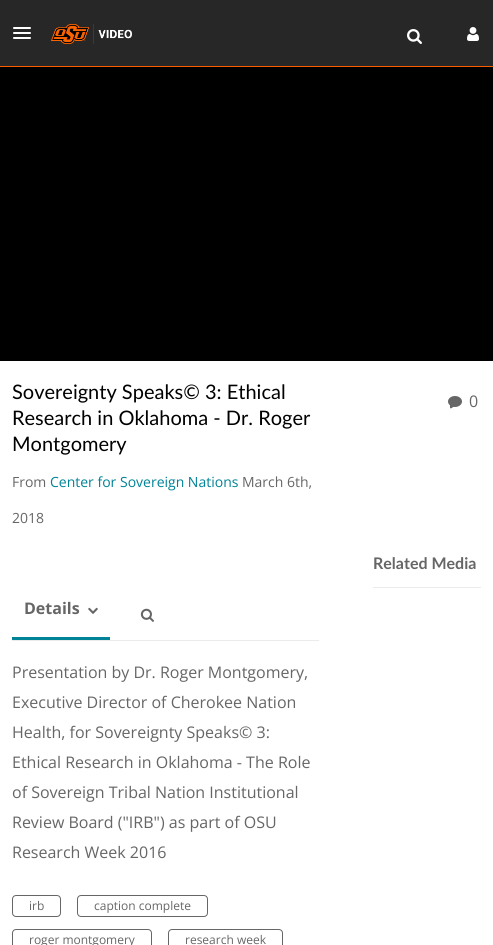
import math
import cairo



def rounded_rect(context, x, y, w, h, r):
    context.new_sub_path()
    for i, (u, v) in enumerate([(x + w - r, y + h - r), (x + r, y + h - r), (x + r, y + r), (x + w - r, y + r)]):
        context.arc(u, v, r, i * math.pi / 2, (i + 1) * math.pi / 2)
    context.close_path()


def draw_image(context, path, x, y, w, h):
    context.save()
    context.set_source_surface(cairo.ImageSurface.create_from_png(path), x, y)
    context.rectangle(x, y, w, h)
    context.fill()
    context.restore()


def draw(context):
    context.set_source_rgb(1, 1, 1)
    context.paint()
    context.set_source_rgb(254 / 255, 92 / 255, 0)
    context.rectangle(0, 66, 493, 1)
    context.fill()
    context.set_source_rgb(39 / 255, 39 / 255, 39 / 255)
    context.rectangle(0, 0, 493, 66)
    context.fill()
    context.set_source_rgb(1, 1, 1)
    rounded_rect(context, 13, 27, 18, 2, 1)
    context.fill()
    rounded_rect(context, 13, 32, 18, 2, 1)
    context.fill()
    rounded_rect(context, 13, 37, 18, 2, 1)
    context.fill()
    draw_image(context, "images/1.png", 51, 24, 81, 20)
    draw_image(context, "images/2.png", 407, 29, 15, 15)
    draw_image(context, "images/3.png", 467, 27, 12, 14)
    context.set_source_rgb(0, 0, 0)
    context.rectangle(0, 67, 493, 294)
    context.fill()
    draw_image(context, "images/4.png", 448, 396, 14, 13)
    context.set_source_rgb(235 / 255, 235 / 255, 235 / 255)
    context.rectangle(373, 587, 108, 1)
    context.fill()
    context.rectangle(12, 640, 307, 1)
    context.fill()
    context.set_source_rgb(0, 130 / 255, 151 / 255)
    context.rectangle(12, 637, 98, 3)
    context.fill()
    draw_image(context, "images/5.png", 88, 607, 10, 7)
    draw_image(context, "images/6.png", 140, 608, 14, 14)
    rounded_rect(context, 12.5, 895.5, 48, 21, 3.5)
    context.set_source_rgb(102 / 255, 102 / 255, 102 / 255)
    context.set_line_width(1)
    context.stroke()
    rounded_rect(context, 77.5, 895.5, 130, 21, 3.5)
    context.stroke()
    rounded_rect(context, 12.5, 929.5, 139, 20, 3.5)
    context.stroke()
    rounded_rect(context, 168.5, 929.5, 114, 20, 3.5)
    context.stroke()
    context.select_font_face("Lato")
    context.set_font_size(20)
    context.set_source_rgb(0, 0, 0)
    context.move_to(12, 399)
    context.show_text("Sovereignty Speaks© 3: Ethical")
    context.move_to(12, 425)
    context.show_text("Research in Oklahoma - Dr. Roger")
    context.move_to(12, 451)
    context.show_text("Montgomery")
    context.select_font_face("Open Sans")
    context.set_font_size(14)
    context.set_source_rgb(102 / 255, 102 / 255, 102 / 255)
    context.move_to(12, 487)
    context.show_text("From")
    context.set_source_rgb(0, 130 / 255, 151 / 255)
    context.move_to(50, 487)
    context.show_text("Center for Sovereign Nations")
    context.set_source_rgb(102 / 255, 102 / 255, 102 / 255)
    context.move_to(242, 487)
    context.show_text("March 6th,")
    context.move_to(12, 523)
    context.show_text("2018")
    context.set_font_size(16)
    context.move_to(469, 407)
    context.show_text("0")
    context.select_font_face("Lato", cairo.FontSlant.NORMAL, cairo.FontWeight.BOLD)
    context.move_to(373, 569)
    context.show_text("Related Media")
    context.select_font_face("Open Sans", cairo.FontSlant.NORMAL, cairo.FontWeight.BOLD)
    context.move_to(24, 614)
    context.show_text("Details")
    context.select_font_face("Open Sans")
    context.move_to(12, 678)
    context.show_text("Presentation by Dr. Roger Montgomery,")
    context.move_to(12, 708)
    context.show_text("Executive Director of Cherokee Nation")
    context.move_to(12, 738)
    context.show_text("Health, for Sovereignty Speaks© 3:")
    context.move_to(12, 768)
    context.show_text("Ethical Research in Oklahoma - The Role")
    context.move_to(12, 798)
    context.show_text("of Sovereign Tribal Nation Institutional")
    context.move_to(12, 828)
    context.show_text("Review Board (\"IRB\") as part of OSU")
    context.move_to(12, 858)
    context.show_text("Research Week 2016")
    context.set_font_size(12)
    context.move_to(29, 910)
    context.show_text("irb")
    context.move_to(94, 910)
    context.show_text("caption complete")
    context.move_to(29, 944)
    context.show_text("roger montgomery")
    context.move_to(185, 944)
    context.show_text("research week")


surface = cairo.ImageSurface(cairo.Format.RGB24, 493, 945)
context = cairo.Context(surface)
options = cairo.FontOptions()
options.set_hint_metrics(cairo.HintMetrics.OFF)
options.set_hint_style(cairo.HintStyle.NONE)
context.set_font_options(options)
context.set_miter_limit(4)
draw(context)
surface.write_to_png("out.png")
